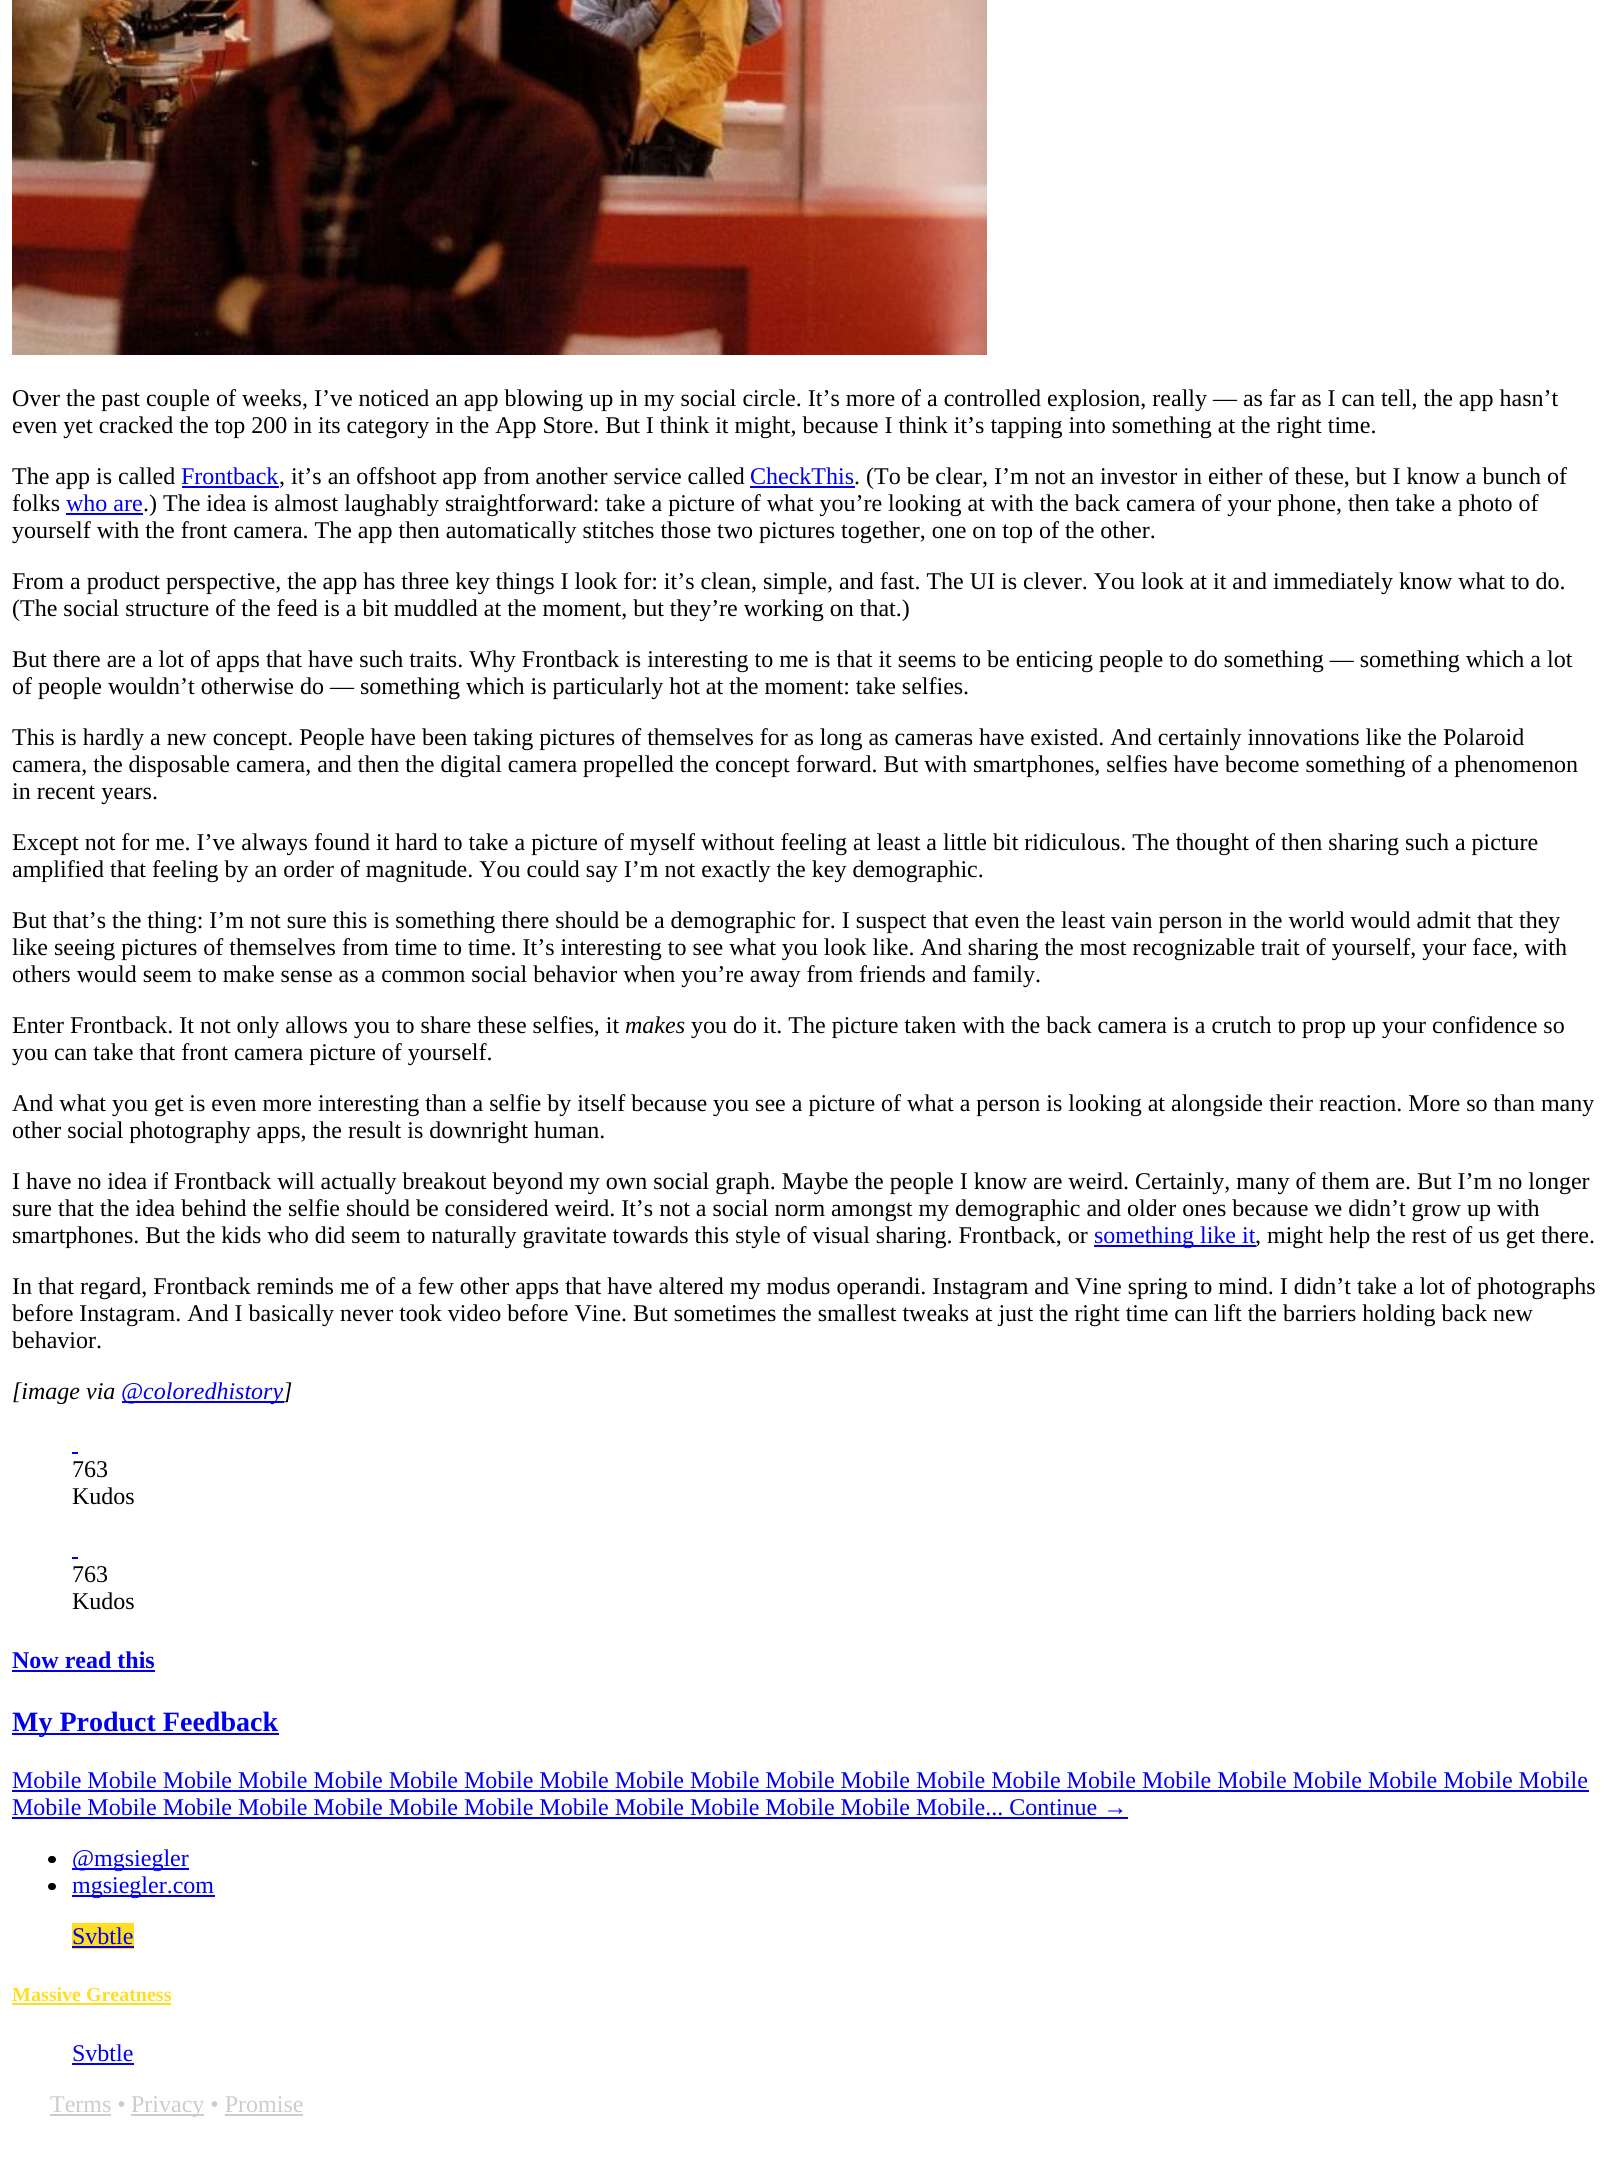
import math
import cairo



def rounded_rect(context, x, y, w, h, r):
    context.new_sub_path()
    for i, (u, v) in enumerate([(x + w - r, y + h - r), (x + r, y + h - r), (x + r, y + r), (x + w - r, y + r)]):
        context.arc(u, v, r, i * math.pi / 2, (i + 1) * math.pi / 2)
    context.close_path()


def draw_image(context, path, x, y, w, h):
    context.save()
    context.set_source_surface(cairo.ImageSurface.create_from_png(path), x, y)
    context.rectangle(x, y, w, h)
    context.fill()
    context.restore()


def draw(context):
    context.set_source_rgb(1, 1, 1)
    context.paint()
    draw_image(context, "images/1.png", 12, 0, 975, 355)
    context.set_source_rgb(0, 0, 238 / 255)
    context.rectangle(182, 486, 97, 2)
    context.fill()
    context.rectangle(750, 486, 105, 2)
    context.fill()
    context.rectangle(66, 513, 77, 2)
    context.fill()
    context.rectangle(1094, 1245, 162, 2)
    context.fill()
    context.rectangle(122, 1401, 162, 2)
    context.fill()
    context.rectangle(72, 1452, 6, 2)
    context.fill()
    context.rectangle(72, 1557, 6, 2)
    context.fill()
    context.rectangle(12, 1670, 143, 2)
    context.fill()
    context.rectangle(12, 1733, 267, 2)
    context.fill()
    context.rectangle(12, 1790, 1577, 2)
    context.fill()
    context.rectangle(12, 1817, 1116, 2)
    context.fill()
    context.set_source_rgb(0, 0, 0)
    rounded_rect(context, 48, 1856, 8, 7, 3.5)
    context.fill()
    context.set_source_rgb(0, 0, 238 / 255)
    context.rectangle(72, 1868, 117, 2)
    context.fill()
    context.set_source_rgb(0, 0, 0)
    rounded_rect(context, 48, 1883, 8, 7, 3.5)
    context.fill()
    context.set_source_rgb(0, 0, 238 / 255)
    context.rectangle(72, 1895, 143, 2)
    context.fill()
    context.set_source_rgb(1, 222 / 255, 33 / 255)
    context.rectangle(72, 1923, 62, 26)
    context.fill()
    context.set_source_rgb(0, 0, 238 / 255)
    context.rectangle(72, 1946, 62, 2)
    context.fill()
    context.set_source_rgb(1, 222 / 255, 33 / 255)
    context.rectangle(12, 2003, 159, 2)
    context.fill()
    context.set_source_rgb(0, 0, 238 / 255)
    context.rectangle(72, 2063, 62, 2)
    context.fill()
    context.set_source_rgb(204 / 255, 204 / 255, 204 / 255)
    context.rectangle(50, 2114, 61, 2)
    context.fill()
    context.rectangle(131, 2114, 73, 2)
    context.fill()
    context.rectangle(225, 2114, 78, 2)
    context.fill()
    context.select_font_face("Liberation Serif")
    context.set_font_size(24)
    context.set_source_rgb(0, 0, 0)
    context.move_to(12, 406)
    context.show_text("Over the past couple of weeks, I’ve noticed an app blowing up in my social circle. It’s more of a controlled explosion, really — as far as I can tell, the app hasn’t")
    context.move_to(12, 433)
    context.show_text("even yet cracked the top 200 in its category in the App Store. But I think it might, because I think it’s tapping into something at the right time.")
    context.move_to(12, 484)
    context.show_text("The app is called")
    context.set_source_rgb(0, 0, 238 / 255)
    context.move_to(181, 484)
    context.show_text("Frontback")
    context.set_source_rgb(0, 0, 0)
    context.move_to(279, 484)
    context.show_text(", it’s an offshoot app from another service called")
    context.set_source_rgb(0, 0, 238 / 255)
    context.move_to(750, 484)
    context.show_text("CheckThis")
    context.set_source_rgb(0, 0, 0)
    context.move_to(854, 484)
    context.show_text(". (To be clear, I’m not an investor in either of these, but I know a bunch of")
    context.move_to(12, 511)
    context.show_text("folks")
    context.set_source_rgb(0, 0, 238 / 255)
    context.move_to(66, 511)
    context.show_text("who are")
    context.set_source_rgb(0, 0, 0)
    context.move_to(143, 511)
    context.show_text(".) The idea is almost laughably straightforward: take a picture of what you’re looking at with the back camera of your phone, then take a photo of")
    context.move_to(12, 538)
    context.show_text("yourself with the front camera. The app then automatically stitches those two pictures together, one on top of the other.")
    context.move_to(12, 589)
    context.show_text("From a product perspective, the app has three key things I look for: it’s clean, simple, and fast. The UI is clever. You look at it and immediately know what to do.")
    context.move_to(12, 616)
    context.show_text("(The social structure of the feed is a bit muddled at the moment, but they’re working on that.)")
    context.move_to(12, 667)
    context.show_text("But there are a lot of apps that have such traits. Why Frontback is interesting to me is that it seems to be enticing people to do something — something which a lot")
    context.move_to(12, 694)
    context.show_text("of people wouldn’t otherwise do — something which is particularly hot at the moment: take selfies.")
    context.move_to(12, 745)
    context.show_text("This is hardly a new concept. People have been taking pictures of themselves for as long as cameras have existed. And certainly innovations like the Polaroid")
    context.move_to(12, 772)
    context.show_text("camera, the disposable camera, and then the digital camera propelled the concept forward. But with smartphones, selfies have become something of a phenomenon")
    context.move_to(12, 799)
    context.show_text("in recent years.")
    context.move_to(12, 850)
    context.show_text("Except not for me. I’ve always found it hard to take a picture of myself without feeling at least a little bit ridiculous. The thought of then sharing such a picture")
    context.move_to(12, 877)
    context.show_text("amplified that feeling by an order of magnitude. You could say I’m not exactly the key demographic.")
    context.move_to(12, 928)
    context.show_text("But that’s the thing: I’m not sure this is something there should be a demographic for. I suspect that even the least vain person in the world would admit that they")
    context.move_to(12, 955)
    context.show_text("like seeing pictures of themselves from time to time. It’s interesting to see what you look like. And sharing the most recognizable trait of yourself, your face, with")
    context.move_to(12, 982)
    context.show_text("others would seem to make sense as a common social behavior when you’re away from friends and family.")
    context.move_to(12, 1033)
    context.show_text("Enter Frontback. It not only allows you to share these selfies, it")
    context.select_font_face("Liberation Serif", cairo.FontSlant.ITALIC)
    context.move_to(625, 1033)
    context.show_text("makes")
    context.select_font_face("Liberation Serif")
    context.move_to(691, 1033)
    context.show_text("you do it. The picture taken with the back camera is a crutch to prop up your confidence so")
    context.move_to(12, 1060)
    context.show_text("you can take that front camera picture of yourself.")
    context.move_to(12, 1111)
    context.show_text("And what you get is even more interesting than a selfie by itself because you see a picture of what a person is looking at alongside their reaction. More so than many")
    context.move_to(12, 1138)
    context.show_text("other social photography apps, the result is downright human.")
    context.move_to(12, 1189)
    context.show_text("I have no idea if Frontback will actually breakout beyond my own social graph. Maybe the people I know are weird. Certainly, many of them are. But I’m no longer")
    context.move_to(12, 1216)
    context.show_text("sure that the idea behind the selfie should be considered weird. It’s not a social norm amongst my demographic and older ones because we didn’t grow up with")
    context.move_to(12, 1243)
    context.show_text("smartphones. But the kids who did seem to naturally gravitate towards this style of visual sharing. Frontback, or")
    context.set_source_rgb(0, 0, 238 / 255)
    context.move_to(1094, 1243)
    context.show_text("something like it")
    context.set_source_rgb(0, 0, 0)
    context.move_to(1255, 1243)
    context.show_text(", might help the rest of us get there.")
    context.move_to(12, 1294)
    context.show_text("In that regard, Frontback reminds me of a few other apps that have altered my modus operandi. Instagram and Vine spring to mind. I didn’t take a lot of photographs")
    context.move_to(12, 1321)
    context.show_text("before Instagram. And I basically never took video before Vine. But sometimes the smallest tweaks at just the right time can lift the barriers holding back new")
    context.move_to(12, 1348)
    context.show_text("behavior.")
    context.select_font_face("Liberation Serif", cairo.FontSlant.ITALIC)
    context.move_to(12, 1399)
    context.show_text("[image via")
    context.set_source_rgb(0, 0, 238 / 255)
    context.move_to(121, 1399)
    context.show_text("@coloredhistory")
    context.set_source_rgb(0, 0, 0)
    context.move_to(283, 1399)
    context.show_text("]")
    context.select_font_face("Liberation Serif")
    context.move_to(72, 1477)
    context.show_text("763")
    context.move_to(72, 1504)
    context.show_text("Kudos")
    context.move_to(72, 1582)
    context.show_text("763")
    context.move_to(72, 1609)
    context.show_text("Kudos")
    context.select_font_face("Liberation Serif", cairo.FontSlant.NORMAL, cairo.FontWeight.BOLD)
    context.set_source_rgb(0, 0, 238 / 255)
    context.move_to(12, 1668)
    context.show_text("Now read this")
    context.set_font_size(28)
    context.move_to(12, 1731)
    context.show_text("My Product Feedback")
    context.select_font_face("Liberation Serif")
    context.set_font_size(24)
    context.move_to(12, 1788)
    context.show_text("Mobile Mobile Mobile Mobile Mobile Mobile Mobile Mobile Mobile Mobile Mobile Mobile Mobile Mobile Mobile Mobile Mobile Mobile Mobile Mobile Mobile")
    context.move_to(12, 1815)
    context.show_text("Mobile Mobile Mobile Mobile Mobile Mobile Mobile Mobile Mobile Mobile Mobile Mobile Mobile... Continue →")
    context.move_to(72, 1866)
    context.show_text("@mgsiegler")
    context.move_to(72, 1893)
    context.show_text("mgsiegler.com")
    context.move_to(72, 1944)
    context.show_text("Svbtle")
    context.select_font_face("Liberation Serif", cairo.FontSlant.NORMAL, cairo.FontWeight.BOLD)
    context.set_font_size(20)
    context.set_source_rgb(1, 222 / 255, 33 / 255)
    context.move_to(12, 2001)
    context.show_text("Massive Greatness")
    context.select_font_face("Liberation Serif")
    context.set_font_size(24)
    context.set_source_rgb(0, 0, 238 / 255)
    context.move_to(72, 2061)
    context.show_text("Svbtle")
    context.set_source_rgb(204 / 255, 204 / 255, 204 / 255)
    context.move_to(50, 2112)
    context.show_text("Terms •")
    context.move_to(131, 2112)
    context.show_text("Privacy • Promise")


surface = cairo.ImageSurface(cairo.Format.RGB24, 1608, 2183)
context = cairo.Context(surface)
options = cairo.FontOptions()
options.set_hint_metrics(cairo.HintMetrics.OFF)
options.set_hint_style(cairo.HintStyle.NONE)
context.set_font_options(options)
context.set_miter_limit(4)
draw(context)
surface.write_to_png("out.png")
